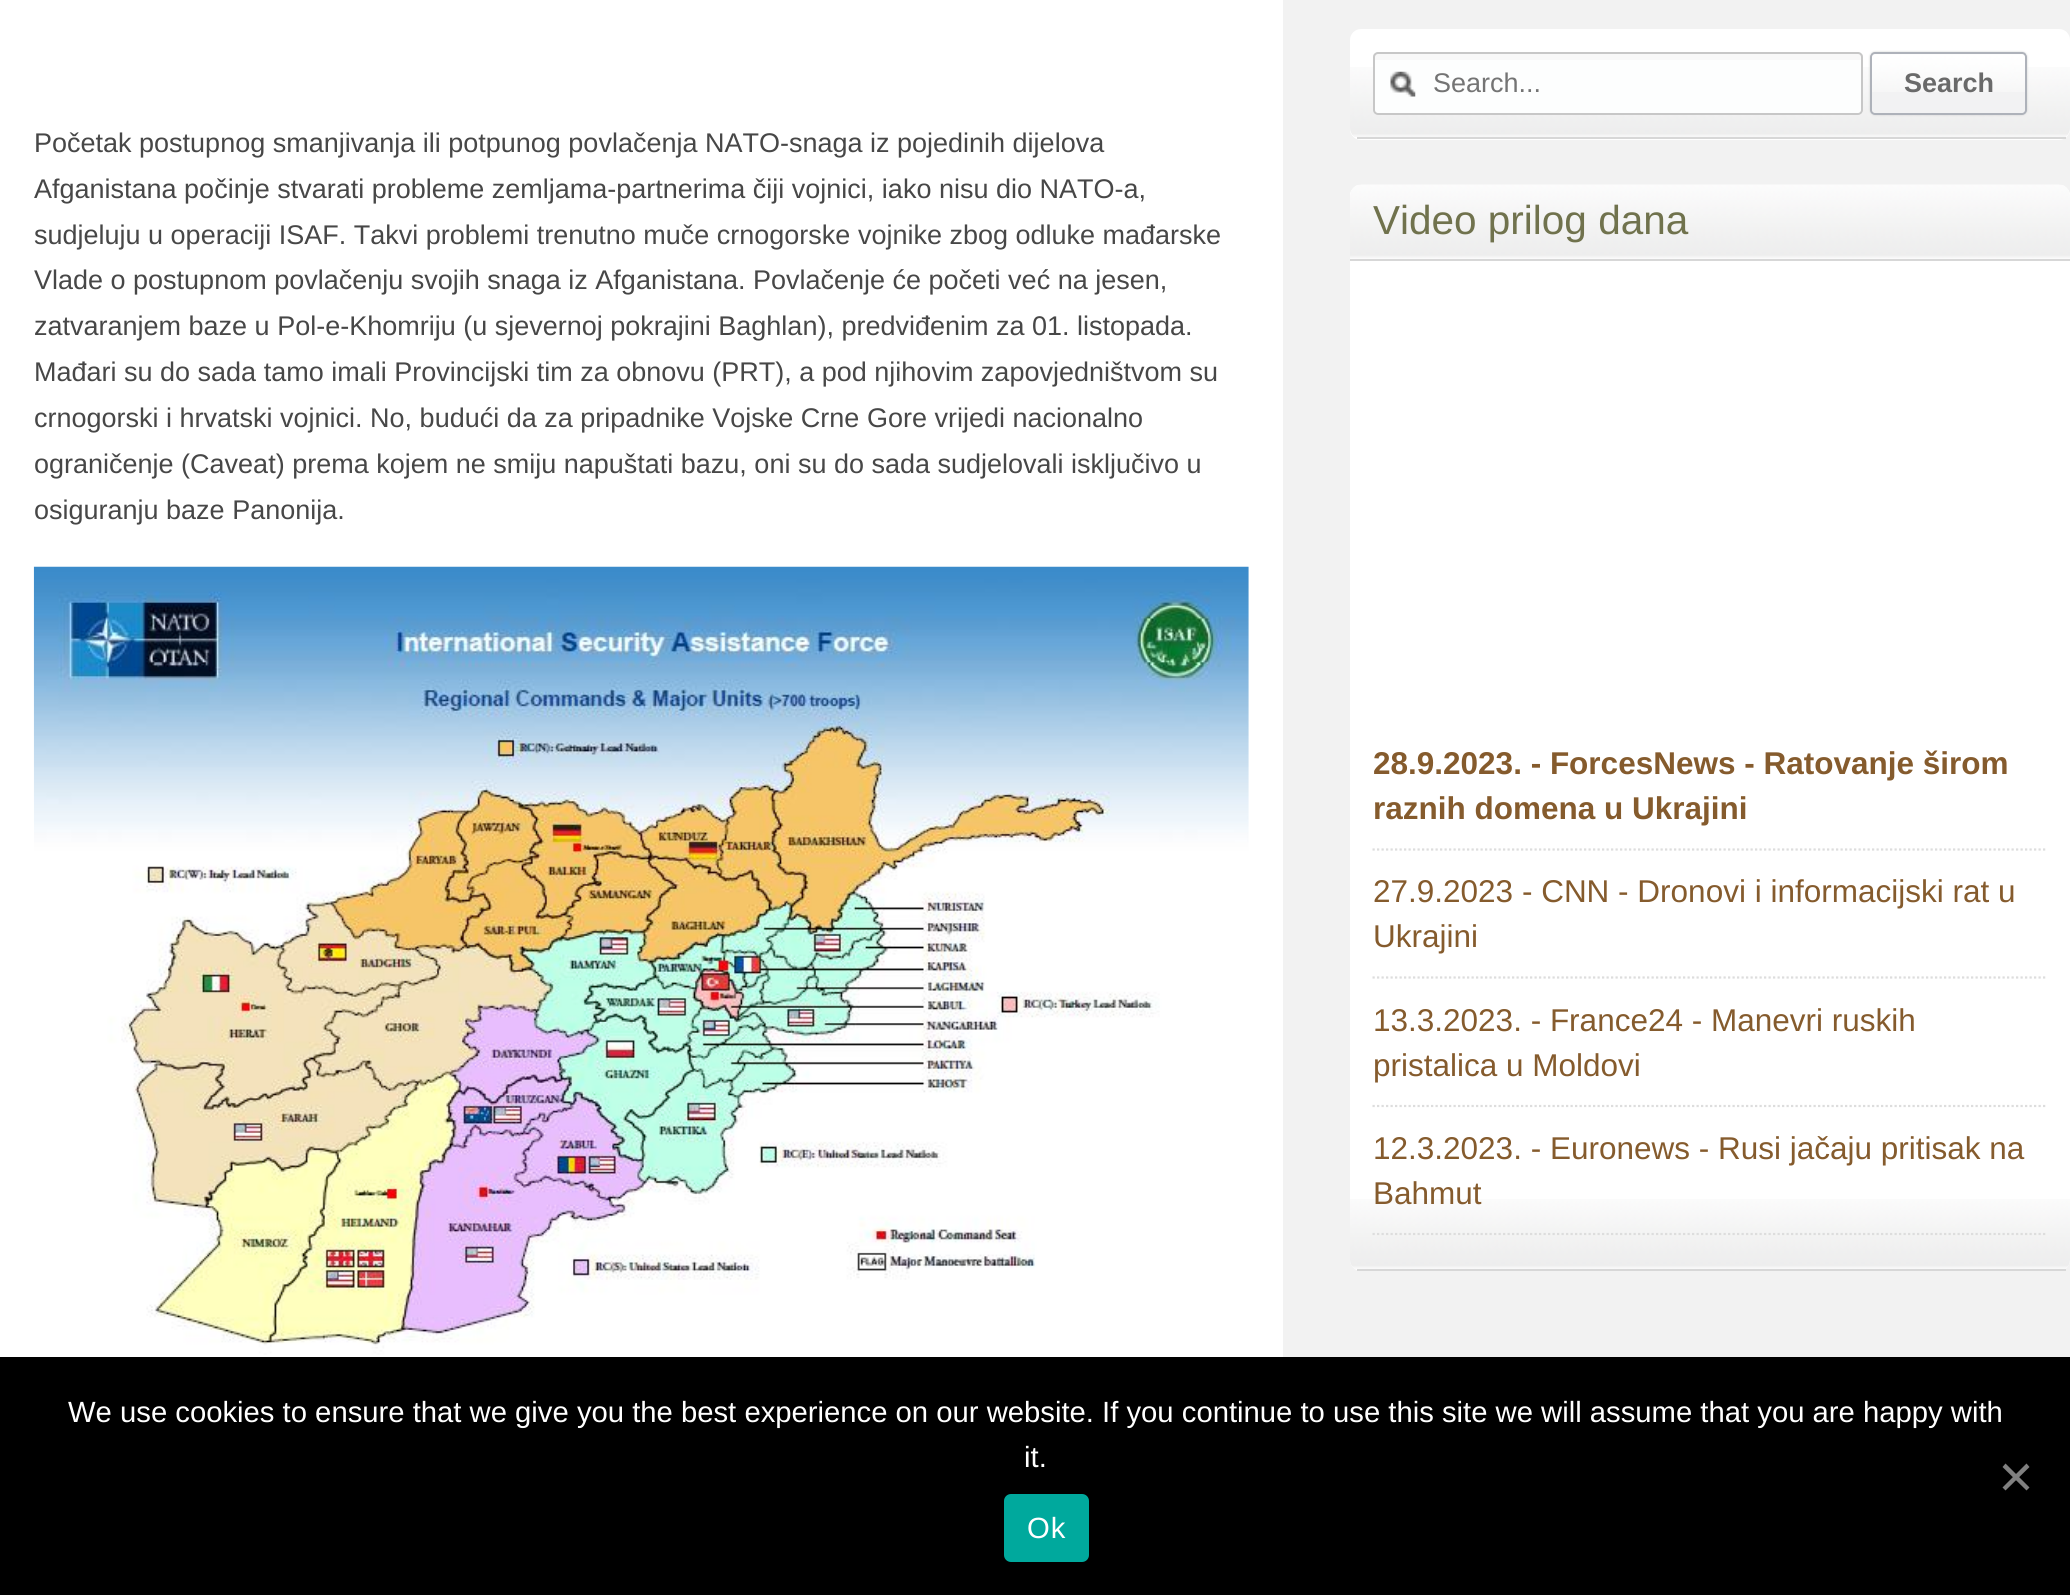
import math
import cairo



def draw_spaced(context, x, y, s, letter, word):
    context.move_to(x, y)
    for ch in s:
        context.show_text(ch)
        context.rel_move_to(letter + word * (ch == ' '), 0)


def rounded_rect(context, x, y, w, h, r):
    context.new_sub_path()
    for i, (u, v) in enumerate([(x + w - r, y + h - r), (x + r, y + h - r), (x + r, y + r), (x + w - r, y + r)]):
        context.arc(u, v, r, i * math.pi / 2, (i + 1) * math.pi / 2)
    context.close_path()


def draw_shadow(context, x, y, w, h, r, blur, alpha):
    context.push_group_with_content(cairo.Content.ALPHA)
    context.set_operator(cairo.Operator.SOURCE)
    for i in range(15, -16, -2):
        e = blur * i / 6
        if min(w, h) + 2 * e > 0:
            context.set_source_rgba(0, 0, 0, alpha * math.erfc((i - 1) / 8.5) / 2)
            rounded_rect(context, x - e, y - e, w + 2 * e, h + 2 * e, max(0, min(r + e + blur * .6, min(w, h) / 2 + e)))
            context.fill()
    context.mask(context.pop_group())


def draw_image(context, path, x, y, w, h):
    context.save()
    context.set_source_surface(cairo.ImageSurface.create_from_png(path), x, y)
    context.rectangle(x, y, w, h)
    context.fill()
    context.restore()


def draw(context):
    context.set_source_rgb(242 / 255, 242 / 255, 242 / 255)
    context.paint()
    context.set_source_rgb(1, 1, 1)
    context.rectangle(0, 0, 1283, 1357)
    context.fill()
    draw_image(context, "images/1.png", 33, 566, 1216, 791)
    rounded_rect(context, 1350, 29, 720, 111, 11)
    context.fill()
    draw_image(context, "images/2.png", 1350, 67, 720, 70)
    context.set_source_rgb(215 / 255, 215 / 255, 215 / 255)
    context.rectangle(1357, 137, 709, 2)
    context.fill()
    context.set_source_rgb(253 / 255, 254 / 255, 254 / 255)
    rounded_rect(context, 1373, 52, 490, 63, 5)
    context.fill()
    context.set_source_rgb(248 / 255, 248 / 255, 248 / 255)
    context.rectangle(1373, 54, 490, 6)
    context.fill()
    rounded_rect(context, 1374, 53, 488, 61, 4)
    context.set_source_rgb(199 / 255, 199 / 255, 199 / 255)
    context.stroke()
    draw_image(context, "images/3.png", 1390, 71, 26, 26)
    context.set_source_rgb(209 / 255, 210 / 255, 209 / 255)
    draw_shadow(context, 1870, 52, 157, 63, 5, 1, 1)
    context.set_source_rgb(242 / 255, 242 / 255, 243 / 255)
    rounded_rect(context, 1870, 52, 157, 63, 5)
    context.fill()
    draw_image(context, "images/4.png", 1870, 53, 157, 39)
    rounded_rect(context, 1871, 53, 155, 61, 4)
    context.set_source_rgb(174 / 255, 178 / 255, 186 / 255)
    context.stroke()
    context.set_source_rgb(1, 1, 1)
    rounded_rect(context, 1350, 185, 720, 1086, 11)
    context.fill()
    draw_image(context, "images/5.png", 1350, 1199, 720, 70)
    context.set_source_rgb(215 / 255, 215 / 255, 215 / 255)
    context.rectangle(1357, 1269, 709, 2)
    context.fill()
    context.set_source_rgb(1, 1, 1)
    context.new_path()
    context.move_to(1361, 185)
    context.line_to(2059, 185)
    context.curve_to(2065, 185, 2070, 190, 2070, 196)
    context.line_to(2070, 261)
    context.line_to(1350, 261)
    context.line_to(1350, 196)
    context.curve_to(1350, 190, 1355, 185, 1361, 185)
    context.close_path()
    context.fill()
    draw_image(context, "images/6.png", 1350, 184, 720, 75)
    context.set_source_rgb(215 / 255, 215 / 255, 215 / 255)
    context.rectangle(1350, 259, 720, 2)
    context.fill()
    context.new_path()
    context.move_to(1372.5, 849.5)
    context.line_to(2047.5, 849.5)
    context.set_source_rgb(221 / 255, 221 / 255, 221 / 255)
    context.set_line_width(2.2)
    context.set_dash([2.25, 2.25])
    context.stroke()
    context.new_path()
    context.move_to(1372.5, 977.5)
    context.line_to(2047.5, 977.5)
    context.stroke()
    context.new_path()
    context.move_to(1372.5, 1106)
    context.line_to(2047.5, 1106)
    context.stroke()
    context.new_path()
    context.move_to(1372.5, 1234)
    context.line_to(2047.5, 1234)
    context.stroke()
    context.set_source_rgb(0, 0, 0)
    context.rectangle(0, 1357, 2070, 238)
    context.fill()
    context.set_source_rgb(128 / 255, 128 / 255, 128 / 255)
    context.new_path()
    context.move_to(2026.5, 1463.5)
    context.line_to(2029.5, 1467)
    context.line_to(2005.5, 1490.5)
    context.line_to(2002.5, 1487.5)
    context.close_path()
    context.fill()
    context.new_path()
    context.move_to(2002.5, 1467)
    context.line_to(2005.5, 1463.5)
    context.line_to(2029.5, 1487.5)
    context.line_to(2026.5, 1490.5)
    context.close_path()
    context.fill()
    context.set_source_rgb(0, 169 / 255, 157 / 255)
    rounded_rect(context, 1004, 1494, 85, 68, 7)
    context.fill()
    context.select_font_face("Liberation Sans")
    context.set_font_size(27)
    context.set_source_rgb(71 / 255, 71 / 255, 71 / 255)
    context.move_to(34, 152)
    context.show_text("Početak postupnog smanjivanja ili potpunog povlačenja NATO-snaga iz pojedinih dijelova")
    context.move_to(34, 198)
    context.show_text("Afganistana počinje stvarati probleme zemljama-partnerima čiji vojnici, iako nisu dio NATO-a,")
    context.move_to(34, 244)
    context.show_text("sudjeluju u operaciji ISAF. Takvi problemi trenutno muče crnogorske vojnike zbog odluke mađarske")
    context.move_to(34, 289)
    context.show_text("Vlade o postupnom povlačenju svojih snaga iz Afganistana. Povlačenje će početi već na jesen,")
    context.move_to(34, 335)
    context.show_text("zatvaranjem baze u Pol-e-Khomriju (u sjevernoj pokrajini Baghlan), predviđenim za 01. listopada.")
    context.move_to(34, 381)
    context.show_text("Mađari su do sada tamo imali Provincijski tim za obnovu (PRT), a pod njihovim zapovjedništvom su")
    context.move_to(34, 427)
    context.show_text("crnogorski i hrvatski vojnici. No, budući da za pripadnike Vojske Crne Gore vrijedi nacionalno")
    context.move_to(34, 473)
    context.show_text("ograničenje (Caveat) prema kojem ne smiju napuštati bazu, oni su do sada sudjelovali isključivo u")
    context.move_to(34, 519)
    context.show_text("osiguranju baze Panonija.")
    context.set_source_rgb(116 / 255, 116 / 255, 116 / 255)
    context.move_to(1433, 92)
    context.show_text("Search...")
    context.select_font_face("Liberation Sans", cairo.FontSlant.NORMAL, cairo.FontWeight.BOLD)
    context.set_source_rgb(106 / 255, 106 / 255, 106 / 255)
    context.move_to(1904, 92)
    context.show_text("Search")
    context.select_font_face("Liberation Sans")
    context.set_font_size(40.5)
    context.set_source_rgb(112 / 255, 114 / 255, 77 / 255)
    context.move_to(1373, 234)
    context.show_text("Video prilog dana")
    context.select_font_face("Liberation Sans", cairo.FontSlant.NORMAL, cairo.FontWeight.BOLD)
    context.set_font_size(31.5)
    context.set_source_rgb(133 / 255, 91 / 255, 45 / 255)
    context.move_to(1373, 774)
    context.show_text("28.9.2023. - ForcesNews - Ratovanje širom")
    context.move_to(1373, 819)
    context.show_text("raznih domena u Ukrajini")
    context.select_font_face("Liberation Sans")
    context.move_to(1373, 902)
    context.show_text("27.9.2023 - CNN - Dronovi i informacijski rat u")
    context.move_to(1373, 947)
    context.show_text("Ukrajini")
    context.move_to(1373, 1031)
    context.show_text("13.3.2023. - France24 - Manevri ruskih")
    context.move_to(1373, 1076)
    context.show_text("pristalica u Moldovi")
    context.move_to(1373, 1159)
    context.show_text("12.3.2023. - Euronews - Rusi jačaju pritisak na")
    context.move_to(1373, 1204)
    context.show_text("Bahmut")
    context.set_font_size(29.25)
    context.set_source_rgb(1, 1, 1)
    context.move_to(68, 1422)
    context.show_text("We use cookies to ensure that we give you the best experience on our website. If you continue to use this site we will assume that you are happy with")
    context.move_to(1024, 1467)
    context.show_text("it.")
    draw_spaced(context, 1027, 1538, "Ok", 1, 0)


surface = cairo.ImageSurface(cairo.Format.RGB24, 2070, 1595)
context = cairo.Context(surface)
options = cairo.FontOptions()
options.set_hint_metrics(cairo.HintMetrics.OFF)
options.set_hint_style(cairo.HintStyle.NONE)
context.set_font_options(options)
context.set_miter_limit(4)
draw(context)
surface.write_to_png("out.png")
